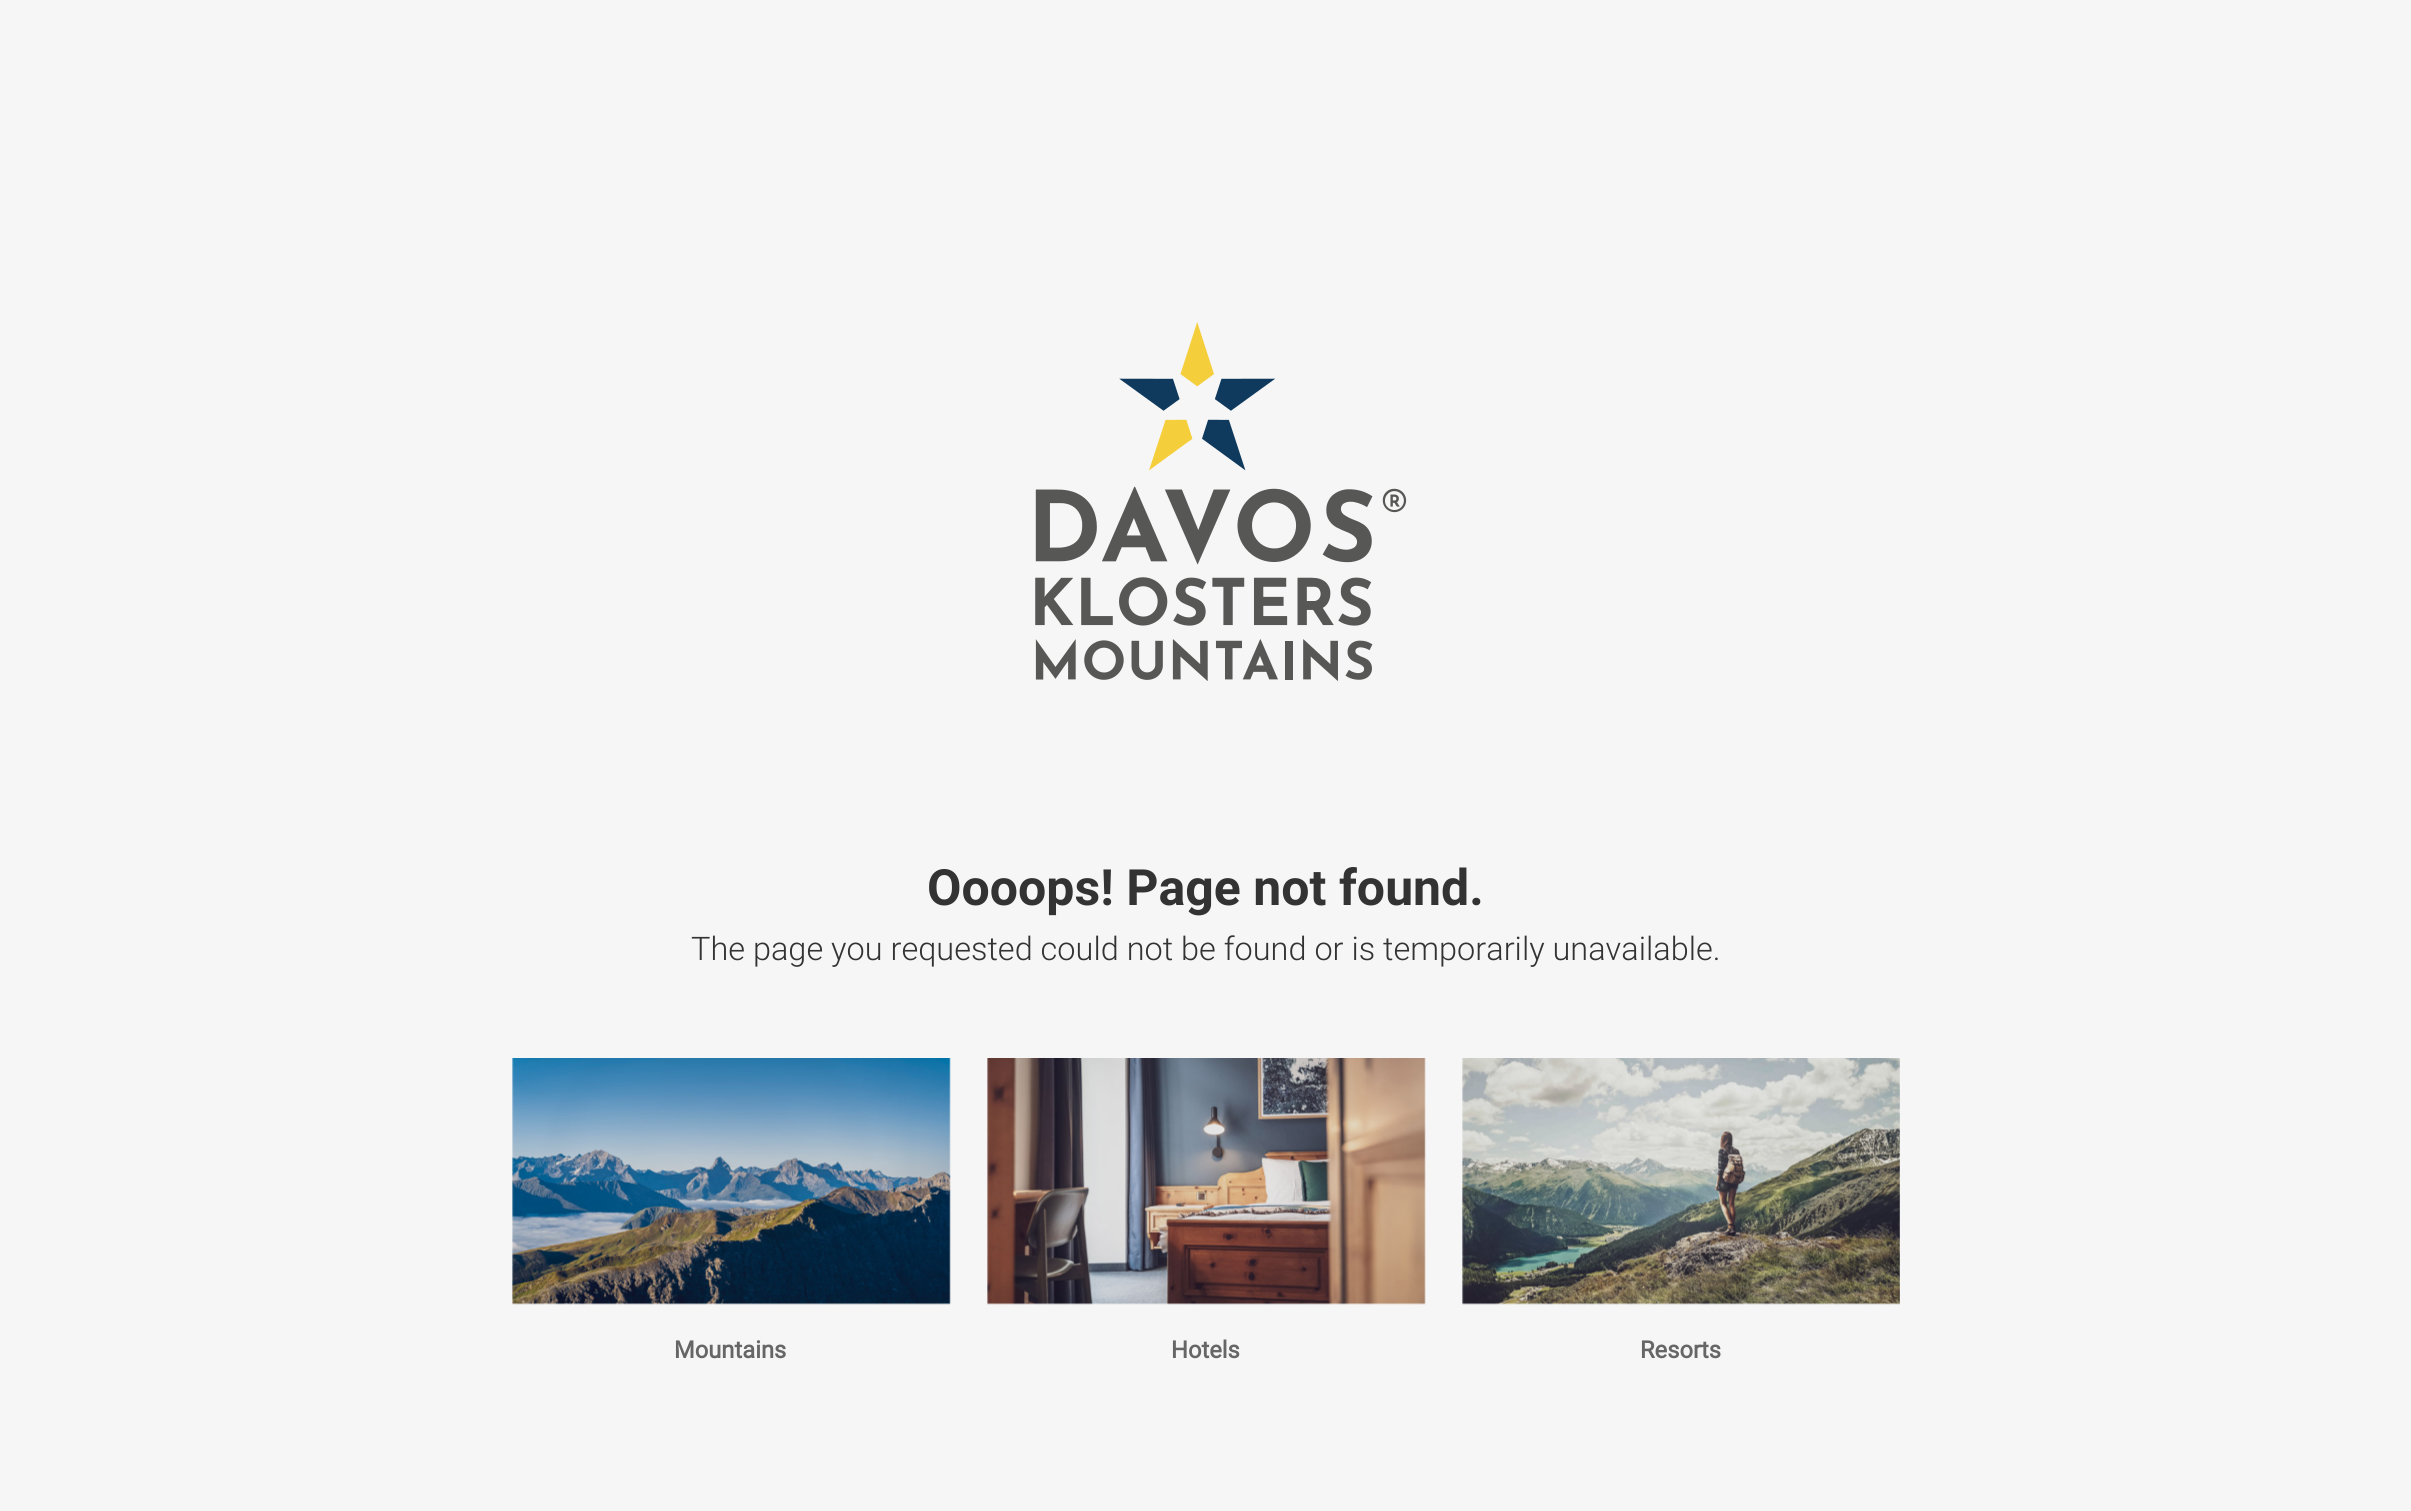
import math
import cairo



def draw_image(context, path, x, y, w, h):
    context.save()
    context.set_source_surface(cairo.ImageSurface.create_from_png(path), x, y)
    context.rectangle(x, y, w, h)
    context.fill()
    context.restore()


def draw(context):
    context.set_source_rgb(246 / 255, 246 / 255, 246 / 255)
    context.paint()
    draw_image(context, "images/1.png", 1035, 322, 372, 359)
    draw_image(context, "images/2.png", 512, 1058, 439, 247)
    draw_image(context, "images/3.png", 987, 1058, 439, 247)
    draw_image(context, "images/4.png", 1462, 1058, 438, 247)
    context.select_font_face("Roboto", cairo.FontSlant.NORMAL, cairo.FontWeight.BOLD)
    context.set_font_size(50)
    context.set_source_rgb(51 / 255, 51 / 255, 51 / 255)
    context.move_to(927, 905)
    context.show_text("Oooops! Page not found.")
    context.select_font_face("Roboto Light")
    context.set_font_size(32.5)
    context.move_to(691, 960)
    context.show_text("The page you requested could not be found or is temporarily unavailable.")
    context.select_font_face("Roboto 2", cairo.FontSlant.NORMAL, cairo.FontWeight.BOLD)
    context.set_font_size(23.75)
    context.set_source_rgb(102 / 255, 102 / 255, 102 / 255)
    context.move_to(674, 1358)
    context.show_text("Mountains")
    context.move_to(1171, 1358)
    context.show_text("Hotels")
    context.move_to(1640, 1358)
    context.show_text("Resorts")


surface = cairo.ImageSurface(cairo.Format.RGB24, 2411, 1511)
context = cairo.Context(surface)
options = cairo.FontOptions()
options.set_hint_metrics(cairo.HintMetrics.OFF)
options.set_hint_style(cairo.HintStyle.NONE)
context.set_font_options(options)
context.set_miter_limit(4)
draw(context)
surface.write_to_png("out.png")
